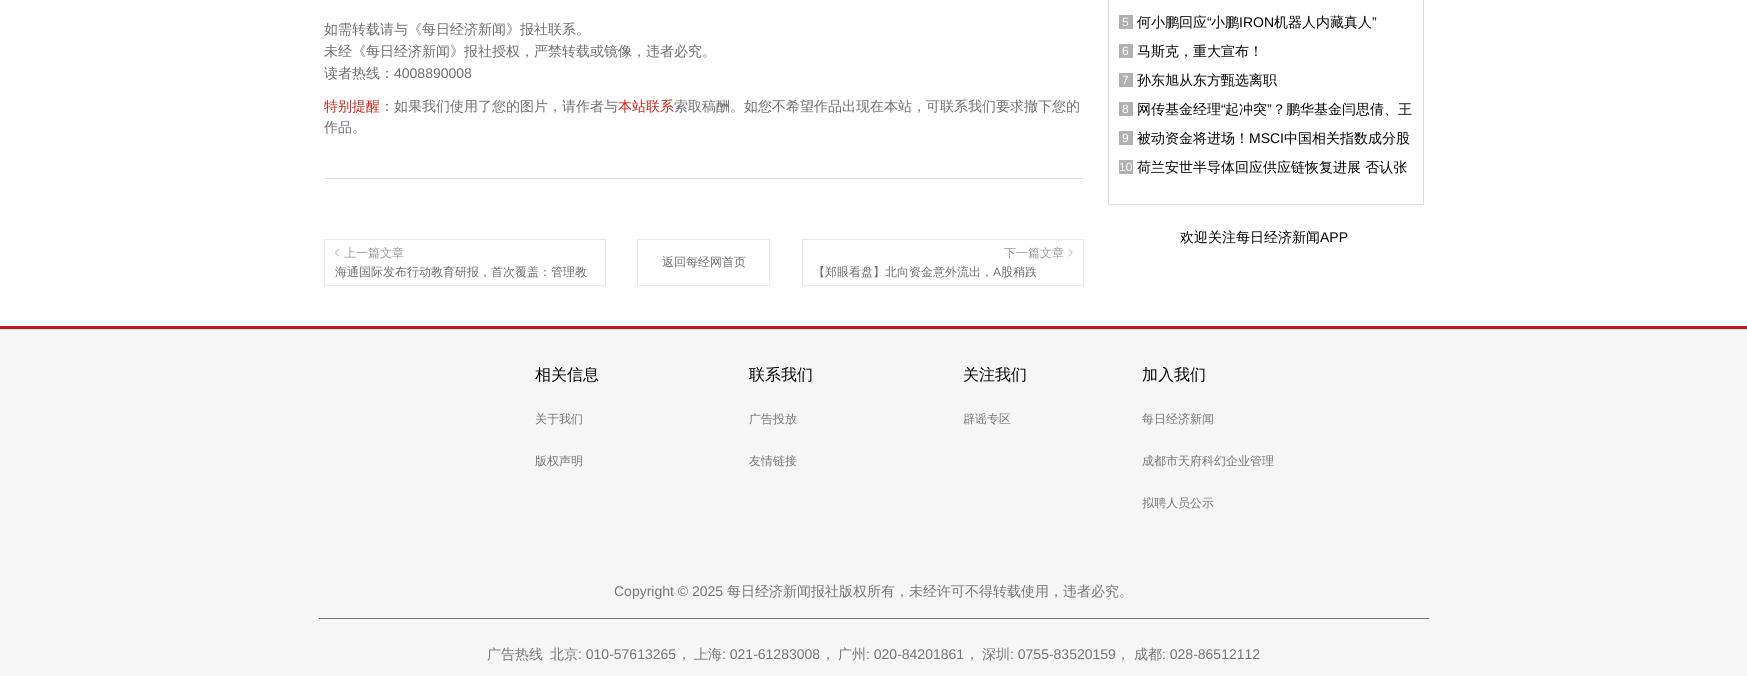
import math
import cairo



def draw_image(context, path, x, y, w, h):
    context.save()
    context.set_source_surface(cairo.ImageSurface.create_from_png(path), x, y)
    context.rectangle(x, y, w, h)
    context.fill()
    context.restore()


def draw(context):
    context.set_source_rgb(1, 1, 1)
    context.paint()
    context.set_source_rgb(222 / 255, 222 / 255, 222 / 255)
    context.rectangle(324, 178, 760, 1)
    context.fill()
    context.rectangle(324.5, 239.5, 281, 46)
    context.set_source_rgb(234 / 255, 234 / 255, 234 / 255)
    context.set_line_width(1)
    context.stroke()
    draw_image(context, "images/1.png", 335, 248, 5, 9)
    context.rectangle(637.5, 239.5, 132, 46)
    context.stroke()
    context.rectangle(802.5, 239.5, 281, 46)
    context.stroke()
    draw_image(context, "images/2.png", 1068, 248, 5, 9)
    context.set_source_rgb(222 / 255, 222 / 255, 222 / 255)
    context.new_path()
    context.move_to(1424, -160)
    context.line_to(1424, 205)
    context.line_to(1423, 204)
    context.line_to(1423, -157)
    context.close_path()
    context.fill()
    context.rectangle(1108, 204, 316, 1)
    context.fill()
    context.new_path()
    context.move_to(1108, 205)
    context.line_to(1108, -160)
    context.line_to(1109, -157)
    context.line_to(1109, 204)
    context.close_path()
    context.fill()
    context.set_source_rgb(177 / 255, 177 / 255, 177 / 255)
    context.rectangle(1119, 15, 14, 14)
    context.fill()
    context.rectangle(1119, 44, 14, 14)
    context.fill()
    context.rectangle(1119, 73, 14, 14)
    context.fill()
    context.rectangle(1119, 102, 14, 14)
    context.fill()
    context.rectangle(1119, 131, 14, 14)
    context.fill()
    context.rectangle(1119, 160, 14, 14)
    context.fill()
    context.set_source_rgb(246 / 255, 246 / 255, 246 / 255)
    context.rectangle(0, 329, 1747, 347)
    context.fill()
    context.set_source_rgb(197 / 255, 23 / 255, 30 / 255)
    context.rectangle(0, 326, 1747, 3)
    context.fill()
    context.set_source_rgb(117 / 255, 117 / 255, 117 / 255)
    context.rectangle(319, 618, 1110, 1)
    context.fill()
    context.select_font_face("WenQuanYi Zen Hei Medium")
    context.set_font_size(14)
    context.set_source_rgb(109 / 255, 109 / 255, 109 / 255)
    context.move_to(324, 34)
    context.show_text("如需转载请与《每日经济新闻》报社联系。")
    context.move_to(324, 56)
    context.show_text("未经《每日经济新闻》报社授权，严禁转载或镜像，违者必究。")
    context.move_to(324, 78)
    context.show_text("读者热线：")
    context.select_font_face("Liberation Sans")
    context.move_to(394, 78)
    context.show_text("4008890008")
    context.select_font_face("WenQuanYi Zen Hei Medium")
    context.set_source_rgb(207 / 255, 33 / 255, 24 / 255)
    context.move_to(324, 111)
    context.show_text("特别提醒")
    context.set_source_rgb(109 / 255, 109 / 255, 109 / 255)
    context.move_to(380, 111)
    context.show_text("：如果我们使用了您的图片，请作者与")
    context.set_source_rgb(207 / 255, 33 / 255, 24 / 255)
    context.move_to(618, 111)
    context.show_text("本站联系")
    context.set_source_rgb(109 / 255, 109 / 255, 109 / 255)
    context.move_to(674, 111)
    context.show_text("索取稿酬。如您不希望作品出现在本站，可联系我们要求撤下您的")
    context.move_to(324, 132)
    context.show_text("作品。")
    context.set_font_size(12)
    context.set_source_rgb(153 / 255, 153 / 255, 153 / 255)
    context.move_to(344, 257)
    context.show_text("上一篇文章")
    context.save()
    context.rectangle(335, 266, 252, 12)
    context.clip()
    context.set_source_rgb(109 / 255, 109 / 255, 109 / 255)
    context.move_to(335, 276)
    context.show_text("海通国际发布行动教育研报，首次覆盖：管理教")
    context.restore()
    context.set_source_rgb(109 / 255, 109 / 255, 109 / 255)
    context.move_to(662, 266)
    context.show_text("返回每经网首页")
    context.set_source_rgb(153 / 255, 153 / 255, 153 / 255)
    context.move_to(1004, 257)
    context.show_text("下一篇文章")
    context.set_source_rgb(109 / 255, 109 / 255, 109 / 255)
    context.move_to(813, 276)
    context.show_text("【郑眼看盘】北向资金意外流出，")
    context.select_font_face("Liberation Sans")
    context.move_to(993, 276)
    context.show_text("A")
    context.select_font_face("WenQuanYi Zen Hei Medium")
    context.move_to(1001, 276)
    context.show_text("股稍跌")
    context.select_font_face("Liberation Sans")
    context.set_source_rgb(1, 1, 1)
    context.move_to(1122, 26)
    context.show_text("5")
    context.select_font_face("WenQuanYi Zen Hei Medium")
    context.set_font_size(14)
    context.set_source_rgb(2 / 255, 2 / 255, 2 / 255)
    context.move_to(1137, 27)
    context.show_text("何小鹏回应")
    context.select_font_face("Liberation Sans")
    context.move_to(1207, 27)
    context.show_text("“")
    context.select_font_face("WenQuanYi Zen Hei Medium")
    context.move_to(1211, 27)
    context.show_text("小鹏")
    context.select_font_face("Liberation Sans")
    context.move_to(1239, 27)
    context.show_text("IRON")
    context.select_font_face("WenQuanYi Zen Hei Medium")
    context.move_to(1274, 27)
    context.show_text("机器人内藏真人")
    context.select_font_face("Liberation Sans")
    context.move_to(1372, 27)
    context.show_text("”")
    context.set_font_size(12)
    context.set_source_rgb(1, 1, 1)
    context.move_to(1122, 55)
    context.show_text("6")
    context.select_font_face("WenQuanYi Zen Hei Medium")
    context.set_font_size(14)
    context.set_source_rgb(2 / 255, 2 / 255, 2 / 255)
    context.move_to(1137, 56)
    context.show_text("马斯克，重大宣布！")
    context.select_font_face("Liberation Sans")
    context.set_font_size(12)
    context.set_source_rgb(1, 1, 1)
    context.move_to(1122, 84)
    context.show_text("7")
    context.select_font_face("WenQuanYi Zen Hei Medium")
    context.set_font_size(14)
    context.set_source_rgb(2 / 255, 2 / 255, 2 / 255)
    context.move_to(1137, 85)
    context.show_text("孙东旭从东方甄选离职")
    context.select_font_face("Liberation Sans")
    context.set_font_size(12)
    context.set_source_rgb(1, 1, 1)
    context.move_to(1122, 113)
    context.show_text("8")
    context.select_font_face("WenQuanYi Zen Hei Medium")
    context.set_font_size(14)
    context.set_source_rgb(2 / 255, 2 / 255, 2 / 255)
    context.move_to(1137, 114)
    context.show_text("网传基金经理")
    context.select_font_face("Liberation Sans")
    context.move_to(1221, 114)
    context.show_text("“")
    context.select_font_face("WenQuanYi Zen Hei Medium")
    context.move_to(1225, 114)
    context.show_text("起冲突")
    context.select_font_face("Liberation Sans")
    context.move_to(1267, 114)
    context.show_text("”")
    context.select_font_face("WenQuanYi Zen Hei Medium")
    context.move_to(1272, 114)
    context.show_text("？鹏华基金闫思倩、王")
    context.select_font_face("Liberation Sans")
    context.set_font_size(12)
    context.set_source_rgb(1, 1, 1)
    context.move_to(1122, 142)
    context.show_text("9")
    context.select_font_face("WenQuanYi Zen Hei Medium")
    context.set_font_size(14)
    context.set_source_rgb(2 / 255, 2 / 255, 2 / 255)
    context.move_to(1137, 143)
    context.show_text("被动资金将进场！")
    context.select_font_face("Liberation Sans")
    context.move_to(1249, 143)
    context.show_text("MSCI")
    context.select_font_face("WenQuanYi Zen Hei Medium")
    context.move_to(1284, 143)
    context.show_text("中国相关指数成分股")
    context.select_font_face("Liberation Sans")
    context.set_font_size(12)
    context.set_source_rgb(1, 1, 1)
    context.move_to(1119, 171)
    context.show_text("10")
    context.select_font_face("WenQuanYi Zen Hei Medium")
    context.set_font_size(14)
    context.set_source_rgb(2 / 255, 2 / 255, 2 / 255)
    context.move_to(1137, 172)
    context.show_text("荷兰安世半导体回应供应链恢复进展 否认张")
    context.move_to(1180, 242)
    context.show_text("欢迎关注每日经济新闻")
    context.select_font_face("Liberation Sans")
    context.move_to(1320, 242)
    context.show_text("APP")
    context.save()
    context.rectangle(535, 367, 64, 130)
    context.clip()
    context.select_font_face("WenQuanYi Zen Hei Medium")
    context.set_font_size(16)
    context.move_to(535, 380)
    context.show_text("相关信息")
    context.restore()
    context.select_font_face("WenQuanYi Zen Hei Medium")
    context.set_font_size(12)
    context.set_source_rgb(117 / 255, 117 / 255, 117 / 255)
    context.move_to(535, 423)
    context.show_text("关于我们")
    context.move_to(535, 465)
    context.show_text("版权声明")
    context.save()
    context.rectangle(749, 367, 64, 130)
    context.clip()
    context.set_font_size(16)
    context.set_source_rgb(2 / 255, 2 / 255, 2 / 255)
    context.move_to(749, 380)
    context.show_text("联系我们")
    context.restore()
    context.move_to(749, 423)
    context.show_text("广告投放")
    context.move_to(749, 465)
    context.show_text("友情链接")
    context.save()
    context.rectangle(963, 367, 64, 88)
    context.clip()
    context.set_font_size(16)
    context.set_source_rgb(2 / 255, 2 / 255, 2 / 255)
    context.move_to(963, 380)
    context.show_text("关注我们")
    context.restore()
    context.move_to(963, 423)
    context.show_text("辟谣专区")
    context.save()
    context.rectangle(1142, 367, 132, 172)
    context.clip()
    context.set_font_size(16)
    context.set_source_rgb(2 / 255, 2 / 255, 2 / 255)
    context.move_to(1142, 380)
    context.show_text("加入我们")
    context.restore()
    context.move_to(1142, 423)
    context.show_text("每日经济新闻")
    context.move_to(1142, 465)
    context.show_text("成都市天府科幻企业管理")
    context.move_to(1142, 507)
    context.show_text("拟聘人员公示")
    context.select_font_face("Liberation Sans")
    context.set_font_size(14)
    context.move_to(614, 596)
    context.show_text("Copyright © 2025")
    context.select_font_face("WenQuanYi Zen Hei Medium")
    context.move_to(727, 596)
    context.show_text("每日经济新闻报社版权所有，未经许可不得转载使用，违者必究。")
    context.move_to(487, 659)
    context.show_text("广告热线")
    context.move_to(550, 659)
    context.show_text("北京")
    context.select_font_face("Liberation Sans")
    context.move_to(578, 659)
    context.show_text(": 010-57613265")
    context.select_font_face("WenQuanYi Zen Hei Medium")
    context.move_to(677, 659)
    context.show_text("，")
    context.move_to(694, 659)
    context.show_text("上海")
    context.select_font_face("Liberation Sans")
    context.move_to(722, 659)
    context.show_text(": 021-61283008")
    context.select_font_face("WenQuanYi Zen Hei Medium")
    context.move_to(821, 659)
    context.show_text("，")
    context.move_to(838, 659)
    context.show_text("广州")
    context.select_font_face("Liberation Sans")
    context.move_to(866, 659)
    context.show_text(": 020-84201861")
    context.select_font_face("WenQuanYi Zen Hei Medium")
    context.move_to(965, 659)
    context.show_text("，")
    context.move_to(982, 659)
    context.show_text("深圳")
    context.select_font_face("Liberation Sans")
    context.move_to(1010, 659)
    context.show_text(": 0755-83520159")
    context.select_font_face("WenQuanYi Zen Hei Medium")
    context.move_to(1116, 659)
    context.show_text("，")
    context.move_to(1134, 659)
    context.show_text("成都")
    context.select_font_face("Liberation Sans")
    context.move_to(1162, 659)
    context.show_text(": 028-86512112")


surface = cairo.ImageSurface(cairo.Format.RGB24, 1747, 676)
context = cairo.Context(surface)
options = cairo.FontOptions()
options.set_hint_metrics(cairo.HintMetrics.OFF)
options.set_hint_style(cairo.HintStyle.NONE)
context.set_font_options(options)
context.set_miter_limit(4)
draw(context)
surface.write_to_png("out.png")
